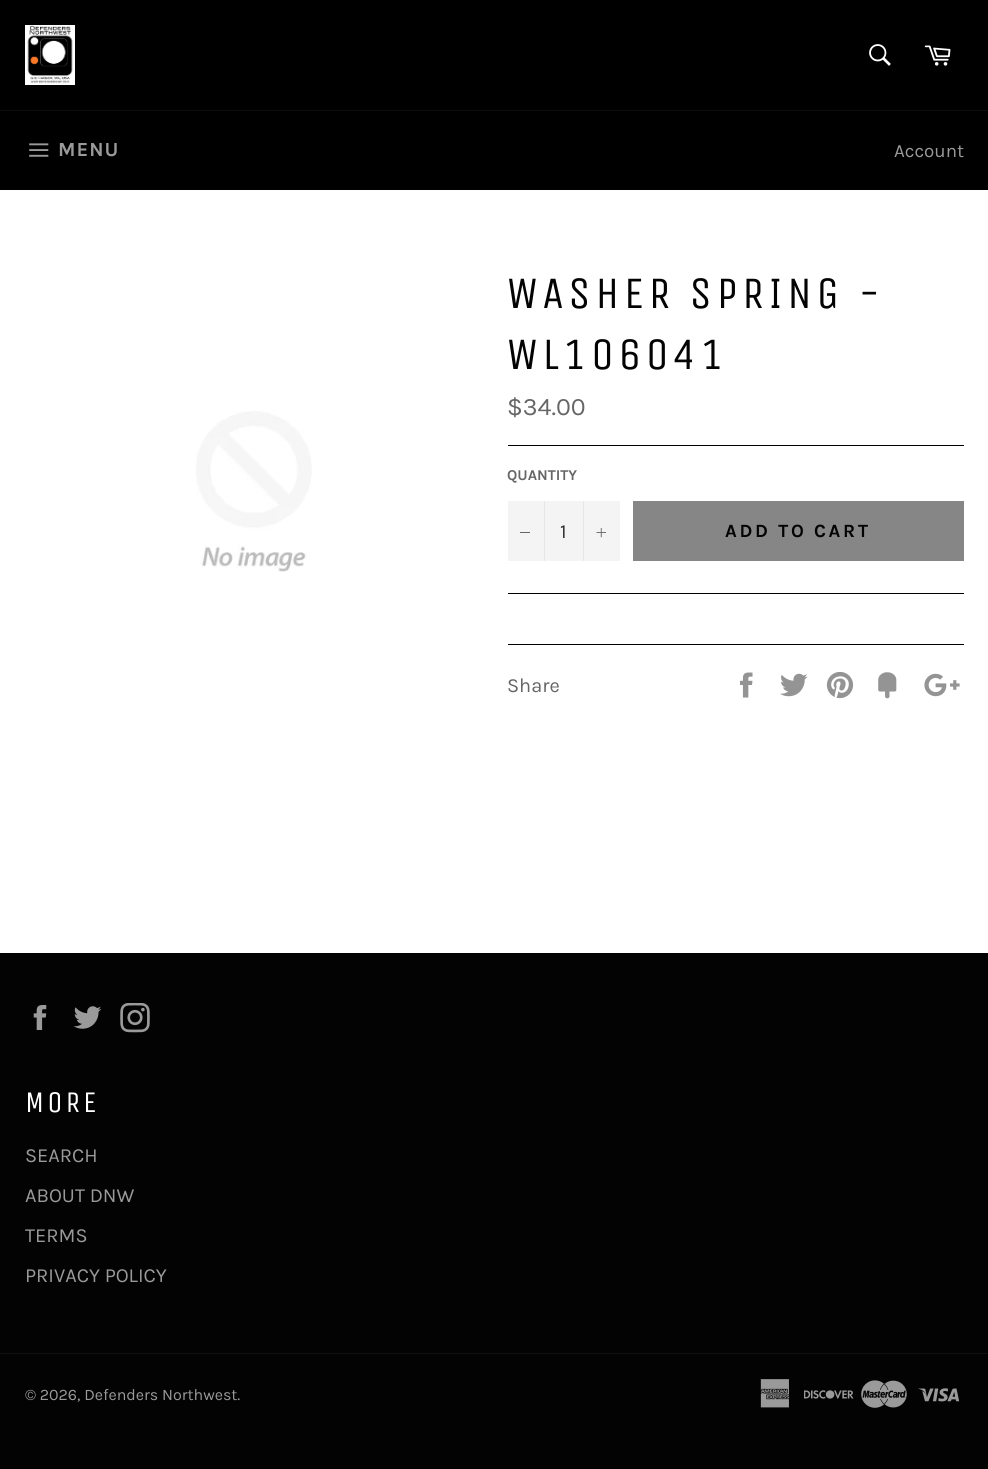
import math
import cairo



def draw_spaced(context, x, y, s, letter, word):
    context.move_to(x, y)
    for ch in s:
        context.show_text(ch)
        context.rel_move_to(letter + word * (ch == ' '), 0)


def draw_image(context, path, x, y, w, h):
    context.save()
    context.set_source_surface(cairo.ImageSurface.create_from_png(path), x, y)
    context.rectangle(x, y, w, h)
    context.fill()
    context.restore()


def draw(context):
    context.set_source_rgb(3 / 255, 3 / 255, 3 / 255)
    context.paint()
    context.set_source_rgb(1, 1, 1)
    context.rectangle(0, 190, 988, 763)
    context.fill()
    context.set_source_rgb(0, 0, 0)
    context.rectangle(0, 0, 988, 110)
    context.fill()
    draw_image(context, "images/1.png", 25, 25, 50, 60)
    draw_image(context, "images/2.png", 869, 44, 22, 22)
    draw_image(context, "images/3.png", 924, 45, 27, 21)
    context.rectangle(0, 111, 988, 79)
    context.fill()
    context.set_source_rgb(13 / 255, 13 / 255, 13 / 255)
    context.rectangle(0, 110, 988, 1)
    context.fill()
    draw_image(context, "images/4.png", 29, 143, 20, 14)
    draw_image(context, "images/5.png", 196, 411, 116, 161)
    context.set_source_rgb(0, 0, 0)
    context.rectangle(508, 445, 456, 1)
    context.fill()
    context.set_source_rgb(244 / 255, 244 / 255, 244 / 255)
    context.rectangle(508, 501, 112, 60)
    context.fill()
    context.set_source_rgb(231 / 255, 231 / 255, 231 / 255)
    context.rectangle(544, 501, 1, 60)
    context.fill()
    context.set_source_rgb(102 / 255, 102 / 255, 102 / 255)
    context.rectangle(520, 532, 10, 1)
    context.fill()
    context.set_source_rgb(231 / 255, 231 / 255, 231 / 255)
    context.rectangle(583, 501, 1, 60)
    context.fill()
    draw_image(context, "images/6.png", 596, 528, 10, 10)
    context.set_source_rgb(134 / 255, 134 / 255, 134 / 255)
    context.rectangle(633, 501, 331, 60)
    context.fill()
    context.set_source_rgb(0, 0, 0)
    context.rectangle(508, 593, 456, 1)
    context.fill()
    context.rectangle(508, 644, 456, 1)
    context.fill()
    draw_image(context, "images/7.png", 740, 672, 13, 26)
    draw_image(context, "images/8.png", 780, 673, 28, 24)
    draw_image(context, "images/9.png", 826, 671, 28, 28)
    draw_image(context, "images/10.png", 878, 672, 19, 27)
    draw_image(context, "images/11.png", 924, 673, 36, 24)
    draw_image(context, "images/12.png", 33, 1005, 14, 25)
    draw_image(context, "images/13.png", 74, 1006, 28, 23)
    draw_image(context, "images/14.png", 120, 1003, 30, 30)
    context.set_source_rgb(16 / 255, 16 / 255, 16 / 255)
    context.rectangle(0, 1353, 988, 1)
    context.fill()
    draw_image(context, "images/15.png", 760, 1379, 30, 29)
    draw_image(context, "images/16.png", 804, 1390, 50, 9)
    draw_image(context, "images/17.png", 861, 1380, 46, 28)
    draw_image(context, "images/18.png", 918, 1388, 42, 14)
    context.select_font_face("Karla", cairo.FontSlant.NORMAL, cairo.FontWeight.BOLD)
    context.set_font_size(20)
    context.set_source_rgb(154 / 255, 154 / 255, 154 / 255)
    draw_spaced(context, 58, 156, "MENU", 1, 0)
    context.select_font_face("Karla")
    context.set_font_size(18.75)
    context.move_to(894, 157)
    context.show_text("Account")
    context.select_font_face("Unica One")
    context.set_font_size(45)
    context.set_source_rgb(3 / 255, 3 / 255, 3 / 255)
    draw_spaced(context, 507, 308, "WASHER SPRING -", 4.5, 0)
    draw_spaced(context, 507, 369, "WL106041", 4.5, 0)
    context.select_font_face("Karla")
    context.set_font_size(25)
    context.set_source_rgb(102 / 255, 102 / 255, 102 / 255)
    context.move_to(507, 415)
    context.show_text("$34.00")
    context.select_font_face("Karla", cairo.FontSlant.NORMAL, cairo.FontWeight.BOLD)
    context.set_font_size(15)
    context.move_to(507, 480)
    context.show_text("QUANTITY")
    context.select_font_face("Karla")
    context.set_font_size(20)
    context.set_source_rgb(51 / 255, 51 / 255, 51 / 255)
    context.move_to(560, 538)
    context.show_text("1")
    context.select_font_face("Karla", cairo.FontSlant.NORMAL, cairo.FontWeight.BOLD)
    context.set_font_size(18.75)
    context.set_source_rgb(3 / 255, 3 / 255, 3 / 255)
    draw_spaced(context, 725, 537, "ADD TO CART", 2.75, 0)
    context.select_font_face("Karla")
    context.set_font_size(20)
    context.set_source_rgb(102 / 255, 102 / 255, 102 / 255)
    context.move_to(507, 692)
    context.show_text("Share")
    context.select_font_face("Unica One")
    context.set_font_size(30)
    context.set_source_rgb(1, 1, 1)
    draw_spaced(context, 25, 1112, "MORE", 3, 0)
    context.select_font_face("Karla")
    context.set_font_size(20)
    context.set_source_rgb(154 / 255, 154 / 255, 154 / 255)
    context.move_to(25, 1162)
    context.show_text("SEARCH")
    context.move_to(25, 1202)
    context.show_text("ABOUT DNW")
    context.move_to(25, 1242)
    context.show_text("TERMS")
    context.move_to(25, 1282)
    context.show_text("PRIVACY POLICY")
    context.set_font_size(16)
    context.move_to(25, 1400)
    context.show_text("© 2026, Defenders Northwest.")


surface = cairo.ImageSurface(cairo.Format.RGB24, 988, 1469)
context = cairo.Context(surface)
options = cairo.FontOptions()
options.set_hint_metrics(cairo.HintMetrics.OFF)
options.set_hint_style(cairo.HintStyle.NONE)
context.set_font_options(options)
context.set_miter_limit(4)
draw(context)
surface.write_to_png("out.png")
